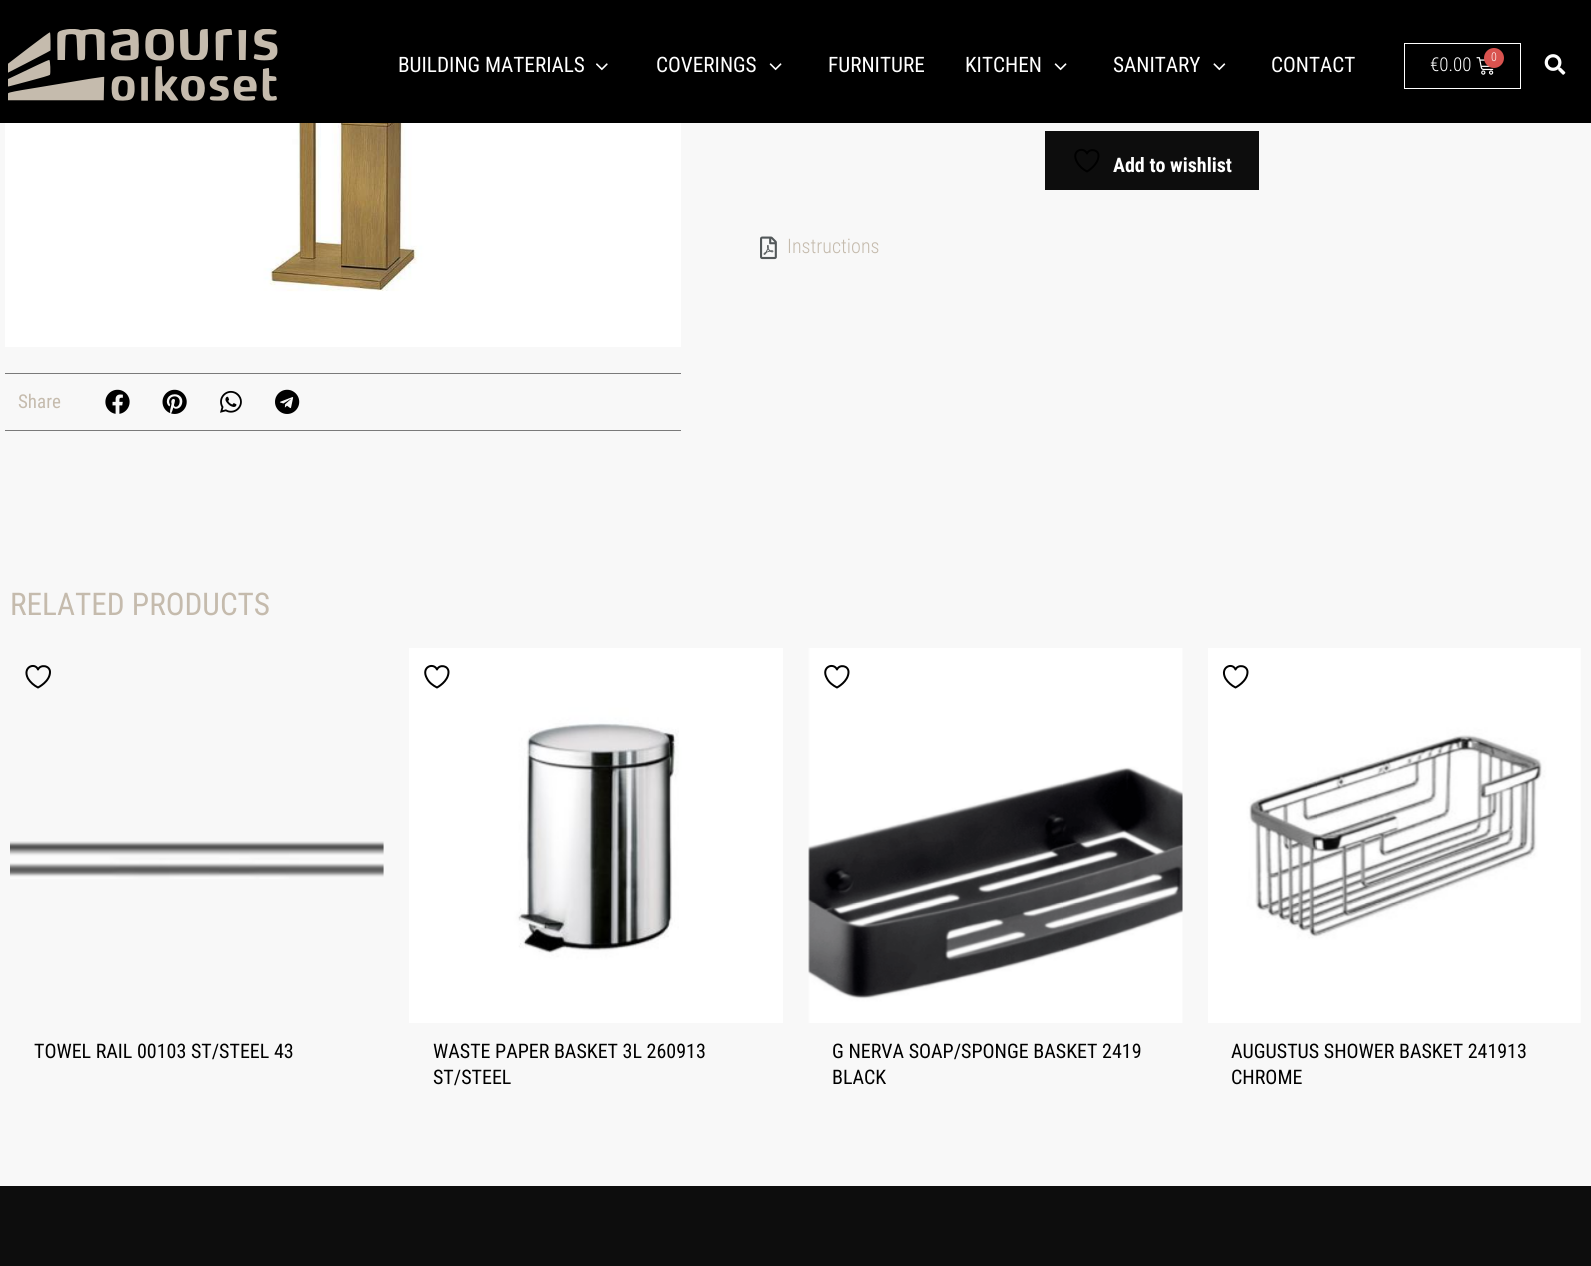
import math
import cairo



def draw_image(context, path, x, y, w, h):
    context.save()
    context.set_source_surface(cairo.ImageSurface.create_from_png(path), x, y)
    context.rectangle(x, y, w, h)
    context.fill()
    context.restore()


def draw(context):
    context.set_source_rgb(248 / 255, 248 / 255, 248 / 255)
    context.paint()
    context.set_source_rgb(0, 0, 0)
    context.rectangle(0, 0, 1591, 123)
    context.fill()
    draw_image(context, "images/1.png", 8, 29, 270, 72)
    draw_image(context, "images/2.png", 596, 63, 12, 8)
    draw_image(context, "images/3.png", 769, 63, 13, 8)
    draw_image(context, "images/3.png", 1054, 63, 13, 8)
    draw_image(context, "images/4.png", 1213, 63, 13, 8)
    context.rectangle(1404.5, 43.5, 116, 45)
    context.set_source_rgb(1, 1, 1)
    context.set_line_width(1)
    context.stroke()
    draw_image(context, "images/5.png", 1476, 57, 18, 18)
    context.set_source_rgb(217 / 255, 83 / 255, 79 / 255)
    context.arc(1494, 58, 10, 0, 2 * math.pi)
    context.fill()
    draw_image(context, "images/6.png", 1544, 54, 22, 21)
    context.set_source_rgb(13 / 255, 13 / 255, 13 / 255)
    context.rectangle(1045, 131, 214, 59)
    context.fill()
    context.new_path()
    context.move_to(1098.5, 155.5)
    context.curve_to(1098.5, 149.5, 1089.5, 148, 1087, 153.5)
    context.curve_to(1083.5, 146, 1070.5, 150.5, 1077, 162)
    context.curve_to(1079, 166, 1083, 169.5, 1087, 171.5)
    context.curve_to(1087, 171.5, 1098.5, 165, 1098.5, 155.5)
    context.close_path()
    context.set_source_rgb(0, 0, 0)
    context.set_line_width(2)
    context.set_line_cap(cairo.LineCap.ROUND)
    context.set_line_join(cairo.LineJoin.ROUND)
    context.stroke()
    draw_image(context, "images/7.png", 760, 236, 17, 24)
    draw_image(context, "images/8.png", 5, 123, 676, 224)
    context.set_source_rgb(122 / 255, 122 / 255, 122 / 255)
    context.rectangle(5, 373, 676, 1)
    context.fill()
    context.rectangle(5, 430, 676, 1)
    context.fill()
    draw_image(context, "images/9.png", 105, 389, 25, 25)
    draw_image(context, "images/10.png", 162, 389, 25, 25)
    draw_image(context, "images/11.png", 220, 390, 22, 23)
    draw_image(context, "images/12.png", 275, 389, 25, 25)
    context.new_path()
    context.move_to(50, 672)
    context.curve_to(50, 665.5, 40.5, 664, 38, 669.5)
    context.curve_to(35, 662, 22, 667, 28, 678.5)
    context.curve_to(30.5, 682.5, 34, 685.5, 38, 687.5)
    context.curve_to(38, 687.5, 50, 681.5, 50, 672)
    context.close_path()
    context.set_source_rgb(0, 0, 0)
    context.stroke()
    draw_image(context, "images/13.png", 10, 841, 374, 38)
    draw_image(context, "images/14.png", 409, 648, 374, 375)
    context.new_path()
    context.move_to(448.5, 672)
    context.curve_to(448.5, 665.5, 439.5, 664, 437, 669.5)
    context.curve_to(433.5, 662, 420.5, 667, 427, 678.5)
    context.curve_to(429, 682.5, 433, 685.5, 437, 687.5)
    context.curve_to(437, 687.5, 448.5, 681.5, 448.5, 672)
    context.close_path()
    context.stroke()
    draw_image(context, "images/15.png", 808, 648, 375, 375)
    context.new_path()
    context.move_to(848.5, 672)
    context.curve_to(848.5, 665.5, 839.5, 664, 837, 669.5)
    context.curve_to(833.5, 662, 820.5, 667, 827, 678.5)
    context.curve_to(829, 682.5, 833, 685.5, 837, 687.5)
    context.curve_to(837, 687.5, 848.5, 681.5, 848.5, 672)
    context.close_path()
    context.stroke()
    draw_image(context, "images/16.png", 1208, 648, 373, 375)
    context.new_path()
    context.move_to(1247.5, 672)
    context.curve_to(1247.5, 665.5, 1238, 664, 1235.5, 669.5)
    context.curve_to(1232.5, 662, 1219.5, 667, 1225.5, 678.5)
    context.curve_to(1228, 682.5, 1231.5, 685.5, 1235.5, 687.5)
    context.curve_to(1235.5, 687.5, 1247.5, 681.5, 1247.5, 672)
    context.close_path()
    context.stroke()
    context.set_source_rgb(13 / 255, 13 / 255, 13 / 255)
    context.rectangle(0, 1186, 1591, 80)
    context.fill()
    context.select_font_face("Roboto Condensed")
    context.set_font_size(21.25)
    context.set_source_rgb(1, 1, 1)
    context.move_to(398, 72)
    context.show_text("BUILDING MATERIALS")
    context.move_to(656, 72)
    context.show_text("COVERINGS")
    context.move_to(828, 72)
    context.show_text("FURNITURE")
    context.move_to(965, 72)
    context.show_text("KITCHEN")
    context.move_to(1113, 72)
    context.show_text("SANITARY")
    context.move_to(1271, 72)
    context.show_text("CONTACT")
    context.select_font_face("Roboto Condensed Light")
    context.set_font_size(19)
    context.move_to(1430, 71)
    context.show_text("€0.00")
    context.set_font_size(12)
    context.move_to(1491, 61)
    context.show_text("0")
    context.select_font_face("Roboto Condensed", cairo.FontSlant.NORMAL, cairo.FontWeight.BOLD)
    context.set_font_size(20)
    context.move_to(1113, 172)
    context.show_text("Add to wishlist")
    context.select_font_face("Roboto Condensed Light")
    context.set_source_rgb(197 / 255, 187 / 255, 173 / 255)
    context.move_to(787, 253)
    context.show_text("Instructions")
    context.select_font_face("Roboto Condensed")
    context.set_font_size(19)
    context.move_to(18, 408)
    context.show_text("Share")
    context.set_font_size(31.25)
    context.move_to(10, 615)
    context.show_text("RELATED PRODUCTS")
    context.set_font_size(20)
    context.set_source_rgb(0, 0, 0)
    context.move_to(34, 1058)
    context.show_text("TOWEL RAIL 00103 ST/STEEL 43")
    context.move_to(433, 1058)
    context.show_text("WASTE PAPER BASKET 3L 260913")
    context.move_to(433, 1084)
    context.show_text("ST/STEEL")
    context.move_to(832, 1058)
    context.show_text("G NERVA SOAP/SPONGE BASKET 2419")
    context.move_to(832, 1084)
    context.show_text("BLACK")
    context.move_to(1231, 1058)
    context.show_text("AUGUSTUS SHOWER BASKET 241913")
    context.move_to(1231, 1084)
    context.show_text("CHROME")


surface = cairo.ImageSurface(cairo.Format.RGB24, 1591, 1266)
context = cairo.Context(surface)
options = cairo.FontOptions()
options.set_hint_metrics(cairo.HintMetrics.OFF)
options.set_hint_style(cairo.HintStyle.NONE)
context.set_font_options(options)
context.set_miter_limit(4)
draw(context)
surface.write_to_png("out.png")
